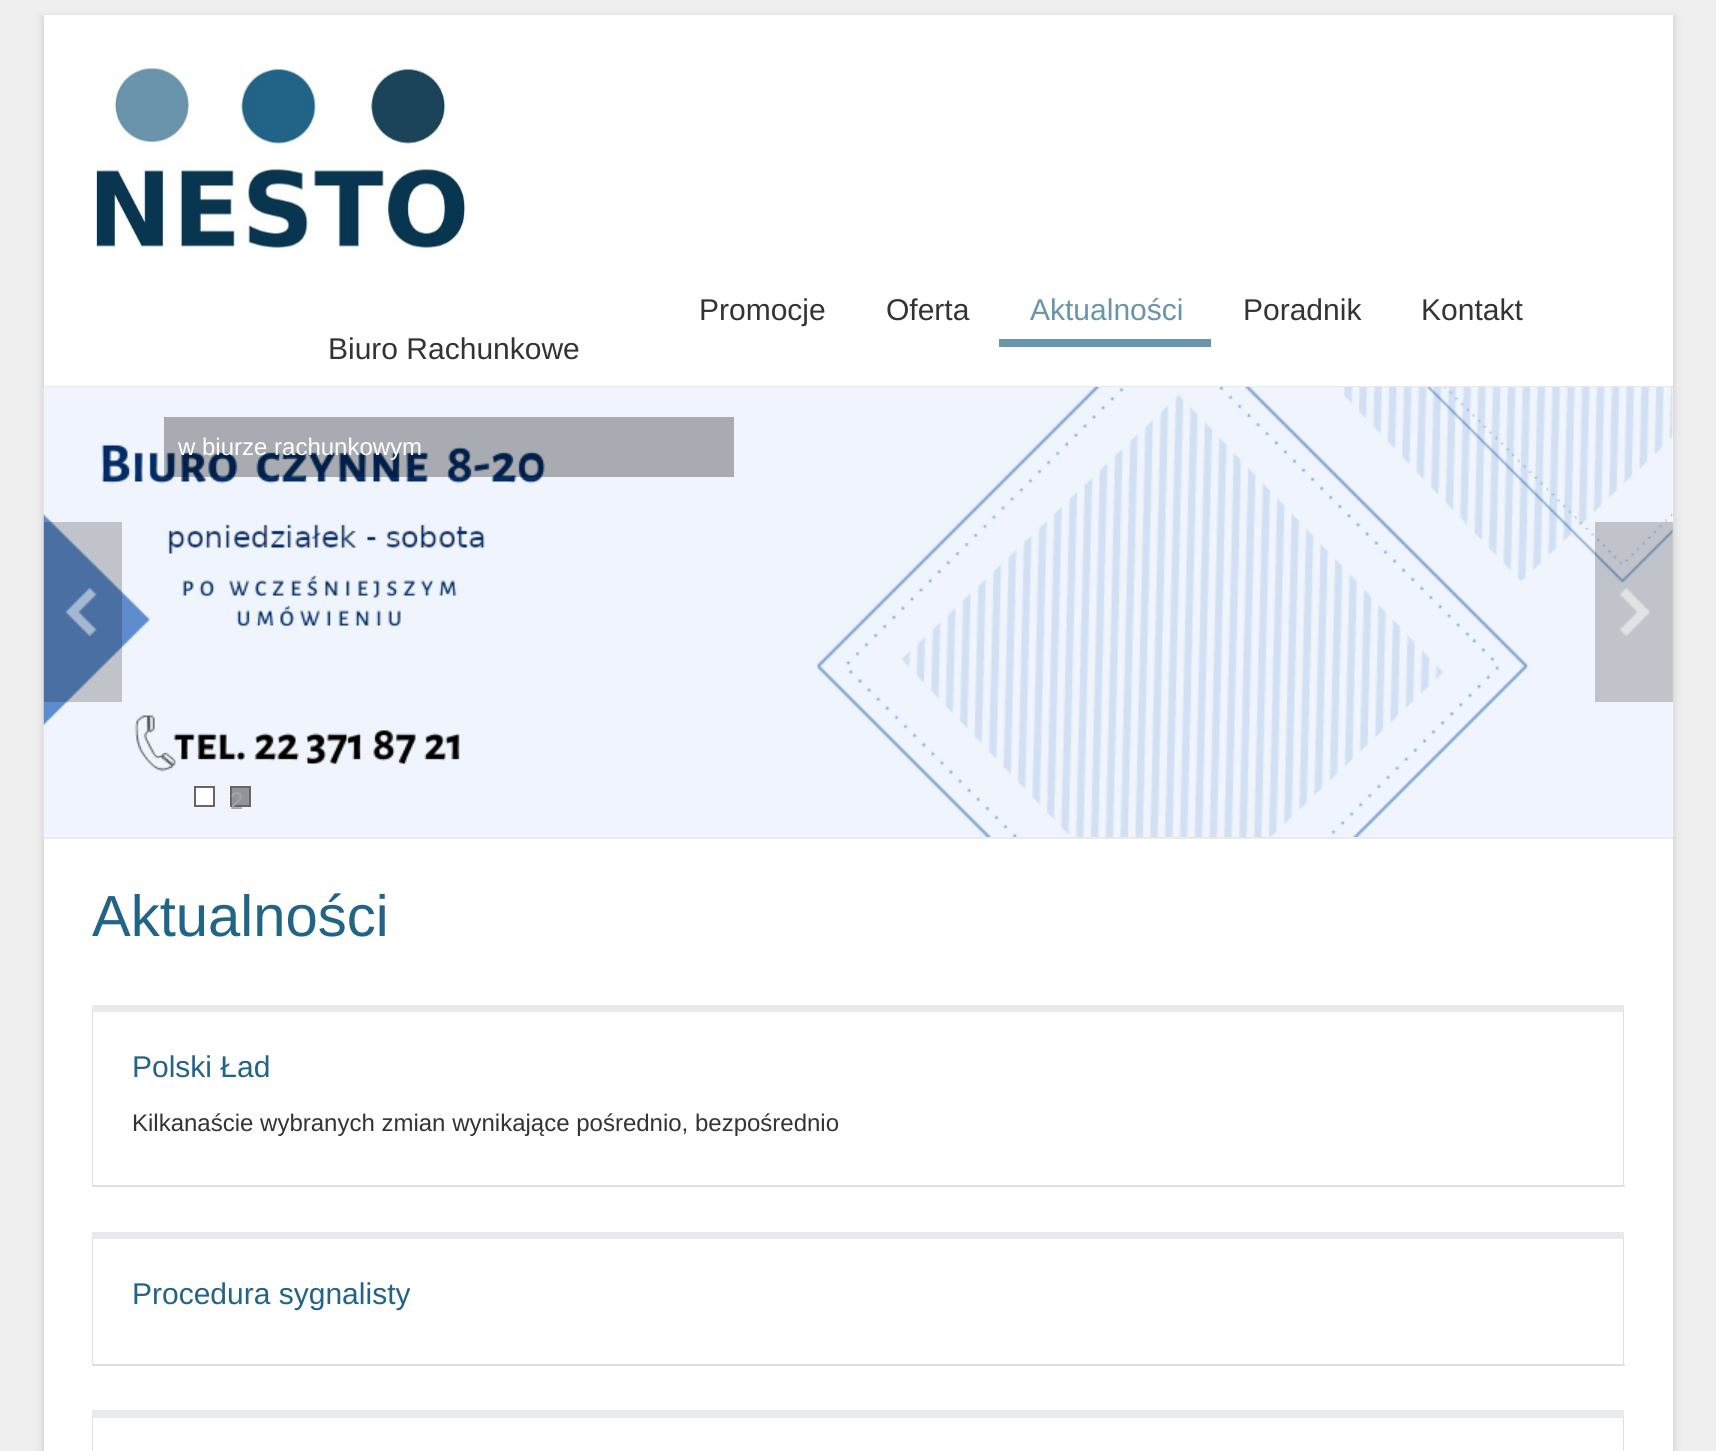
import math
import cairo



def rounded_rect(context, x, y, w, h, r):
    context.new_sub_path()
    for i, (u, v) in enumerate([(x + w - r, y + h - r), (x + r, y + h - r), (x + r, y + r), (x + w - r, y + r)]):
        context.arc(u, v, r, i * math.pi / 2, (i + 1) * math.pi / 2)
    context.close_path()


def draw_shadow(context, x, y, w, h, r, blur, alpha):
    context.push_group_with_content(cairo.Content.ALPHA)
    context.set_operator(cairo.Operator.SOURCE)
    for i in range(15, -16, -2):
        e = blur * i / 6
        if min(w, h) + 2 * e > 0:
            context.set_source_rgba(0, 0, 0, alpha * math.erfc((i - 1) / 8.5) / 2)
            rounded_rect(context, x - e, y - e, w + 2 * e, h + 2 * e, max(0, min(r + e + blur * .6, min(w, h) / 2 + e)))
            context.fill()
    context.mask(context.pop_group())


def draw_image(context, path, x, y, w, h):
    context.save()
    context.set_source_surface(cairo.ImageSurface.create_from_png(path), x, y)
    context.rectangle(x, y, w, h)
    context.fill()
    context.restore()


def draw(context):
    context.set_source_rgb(239 / 255, 239 / 255, 239 / 255)
    context.paint()
    context.set_source_rgb(100 / 255, 100 / 255, 100 / 255)
    draw_shadow(context, 44, 18, 1629, 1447, 0, 4.5, 0.3)
    context.set_source_rgb(1, 1, 1)
    context.rectangle(44, 15, 1629, 1436)
    context.fill()
    draw_image(context, "images/1.png", 96, 67, 369, 181)
    context.set_source_rgb(105 / 255, 148 / 255, 172 / 255)
    context.rectangle(999, 339, 212, 8)
    context.fill()
    context.set_source_rgb(234 / 255, 234 / 255, 234 / 255)
    context.rectangle(44, 386, 1629, 2)
    context.fill()
    draw_image(context, "images/2.png", 43, 387, 1630, 450)
    context.set_source_rgba(0, 0, 0, 0.3)
    context.rectangle(164, 417, 570, 60)
    context.fill()
    context.set_source_rgba(0, 0, 0, 0.2)
    context.rectangle(44, 522, 78, 180)
    context.fill()
    draw_image(context, "images/3.png", 65, 588, 32, 48)
    context.rectangle(1595, 522, 78, 180)
    context.fill()
    draw_image(context, "images/4.png", 1620, 588, 30, 48)
    context.set_source_rgb(1, 1, 1)
    context.rectangle(195, 787, 19, 19)
    context.fill_preserve()
    context.set_source_rgb(102 / 255, 102 / 255, 102 / 255)
    context.stroke()
    context.set_source_rgb(144 / 255, 147 / 255, 152 / 255)
    context.rectangle(231, 787, 19, 19)
    context.fill_preserve()
    context.set_source_rgb(102 / 255, 102 / 255, 102 / 255)
    context.stroke()
    context.set_source_rgb(234 / 255, 234 / 255, 234 / 255)
    context.rectangle(44, 837, 1629, 2)
    context.fill()
    context.set_source_rgb(232 / 255, 234 / 255, 238 / 255)
    context.new_path()
    context.move_to(92, 1005)
    context.line_to(1624, 1005)
    context.line_to(1623, 1012)
    context.line_to(93, 1012)
    context.close_path()
    context.fill()
    context.set_source_rgb(224 / 255, 224 / 255, 224 / 255)
    context.new_path()
    context.move_to(1624, 1005)
    context.line_to(1624, 1186)
    context.line_to(1623, 1185)
    context.line_to(1623, 1012)
    context.close_path()
    context.fill()
    context.rectangle(92, 1185, 1533, 2)
    context.fill()
    context.new_path()
    context.move_to(92, 1186)
    context.line_to(92, 1005)
    context.line_to(93, 1012)
    context.line_to(93, 1185)
    context.close_path()
    context.fill()
    context.set_source_rgb(232 / 255, 234 / 255, 238 / 255)
    context.new_path()
    context.move_to(92, 1232)
    context.line_to(1624, 1232)
    context.line_to(1623, 1239)
    context.line_to(93, 1239)
    context.close_path()
    context.fill()
    context.set_source_rgb(224 / 255, 224 / 255, 224 / 255)
    context.new_path()
    context.move_to(1624, 1232)
    context.line_to(1624, 1365)
    context.line_to(1623, 1364)
    context.line_to(1623, 1239)
    context.close_path()
    context.fill()
    context.rectangle(92, 1364, 1533, 2)
    context.fill()
    context.new_path()
    context.move_to(92, 1365)
    context.line_to(92, 1232)
    context.line_to(93, 1239)
    context.line_to(93, 1364)
    context.close_path()
    context.fill()
    context.set_source_rgb(232 / 255, 234 / 255, 238 / 255)
    context.new_path()
    context.move_to(92, 1410)
    context.line_to(1624, 1410)
    context.line_to(1623, 1418)
    context.line_to(93, 1418)
    context.close_path()
    context.fill()
    context.set_source_rgb(224 / 255, 224 / 255, 224 / 255)
    context.new_path()
    context.move_to(1624, 1410)
    context.line_to(1624, 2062)
    context.line_to(1623, 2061)
    context.line_to(1623, 1418)
    context.close_path()
    context.fill()
    context.new_path()
    context.move_to(92, 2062)
    context.line_to(92, 1410)
    context.line_to(93, 1418)
    context.line_to(93, 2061)
    context.close_path()
    context.fill()
    context.select_font_face("Liberation Sans")
    context.set_font_size(30)
    context.set_source_rgb(51 / 255, 51 / 255, 51 / 255)
    context.move_to(699, 320)
    context.show_text("Promocje")
    context.move_to(886, 320)
    context.show_text("Oferta")
    context.set_source_rgb(105 / 255, 148 / 255, 172 / 255)
    context.move_to(1030, 320)
    context.show_text("Aktualności")
    context.set_source_rgb(51 / 255, 51 / 255, 51 / 255)
    context.move_to(1243, 320)
    context.show_text("Poradnik")
    context.move_to(1421, 320)
    context.show_text("Kontakt")
    context.move_to(328, 359)
    context.show_text("Biuro Rachunkowe")
    context.set_font_size(24)
    context.set_source_rgb(1, 1, 1)
    context.move_to(178, 455)
    context.show_text("w biurze rachunkowym")
    context.set_source_rgb(163 / 255, 166 / 255, 171 / 255)
    context.move_to(230, 809)
    context.show_text("2")
    context.set_font_size(58)
    context.set_source_rgb(34 / 255, 99 / 255, 136 / 255)
    context.move_to(92, 936)
    context.show_text("Aktualności")
    context.set_font_size(30)
    context.move_to(132, 1077)
    context.show_text("Polski Ład")
    context.set_font_size(24)
    context.set_source_rgb(51 / 255, 51 / 255, 51 / 255)
    context.move_to(132, 1131)
    context.show_text("Kilkanaście wybranych zmian wynikające pośrednio, bezpośrednio")
    context.set_font_size(30)
    context.set_source_rgb(34 / 255, 99 / 255, 136 / 255)
    context.move_to(132, 1304)
    context.show_text("Procedura sygnalisty")


surface = cairo.ImageSurface(cairo.Format.RGB24, 1716, 1451)
context = cairo.Context(surface)
options = cairo.FontOptions()
options.set_hint_metrics(cairo.HintMetrics.OFF)
options.set_hint_style(cairo.HintStyle.NONE)
context.set_font_options(options)
context.set_miter_limit(4)
draw(context)
surface.write_to_png("out.png")
